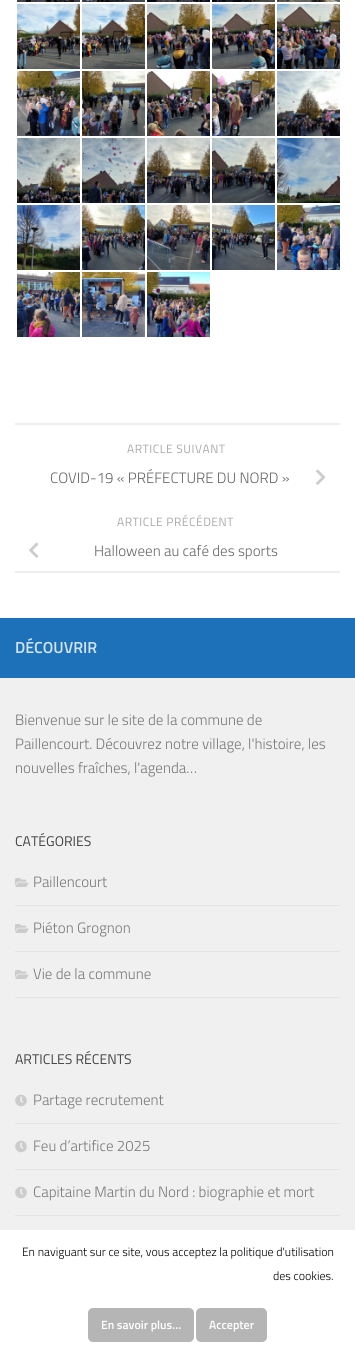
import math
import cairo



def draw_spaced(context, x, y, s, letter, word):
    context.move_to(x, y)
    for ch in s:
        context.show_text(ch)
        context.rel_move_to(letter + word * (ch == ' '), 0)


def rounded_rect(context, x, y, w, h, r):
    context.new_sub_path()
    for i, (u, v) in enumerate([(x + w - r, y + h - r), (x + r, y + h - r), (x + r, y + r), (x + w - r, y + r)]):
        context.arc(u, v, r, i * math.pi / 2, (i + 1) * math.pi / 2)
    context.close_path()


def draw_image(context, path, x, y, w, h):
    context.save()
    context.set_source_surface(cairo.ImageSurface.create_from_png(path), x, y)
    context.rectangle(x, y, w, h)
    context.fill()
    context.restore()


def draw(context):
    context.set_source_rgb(1, 1, 1)
    context.paint()
    draw_image(context, "images/1.png", 17, 0, 63, 2)
    draw_image(context, "images/2.png", 82, 0, 63, 2)
    draw_image(context, "images/3.png", 147, 0, 63, 2)
    draw_image(context, "images/4.png", 212, 0, 63, 2)
    draw_image(context, "images/5.png", 277, 0, 63, 2)
    draw_image(context, "images/6.png", 17, 4, 63, 65)
    draw_image(context, "images/7.png", 82, 4, 63, 65)
    draw_image(context, "images/8.png", 147, 4, 63, 65)
    draw_image(context, "images/9.png", 212, 4, 63, 65)
    draw_image(context, "images/10.png", 277, 4, 63, 65)
    draw_image(context, "images/11.png", 17, 71, 63, 65)
    draw_image(context, "images/12.png", 82, 71, 63, 65)
    draw_image(context, "images/13.png", 147, 71, 63, 65)
    draw_image(context, "images/14.png", 212, 71, 63, 65)
    draw_image(context, "images/15.png", 277, 71, 63, 65)
    draw_image(context, "images/16.png", 17, 138, 63, 65)
    draw_image(context, "images/17.png", 82, 138, 63, 65)
    draw_image(context, "images/18.png", 147, 138, 63, 65)
    draw_image(context, "images/19.png", 212, 138, 63, 65)
    draw_image(context, "images/20.png", 277, 138, 63, 65)
    draw_image(context, "images/21.png", 17, 205, 63, 65)
    draw_image(context, "images/22.png", 82, 205, 63, 65)
    draw_image(context, "images/23.png", 147, 205, 63, 65)
    draw_image(context, "images/24.png", 212, 205, 63, 65)
    draw_image(context, "images/25.png", 277, 205, 63, 65)
    draw_image(context, "images/26.png", 17, 272, 63, 65)
    draw_image(context, "images/27.png", 82, 272, 63, 65)
    draw_image(context, "images/28.png", 147, 272, 63, 65)
    context.set_source_rgb(238 / 255, 238 / 255, 238 / 255)
    context.rectangle(15, 423, 325, 2)
    context.fill()
    context.rectangle(15, 571, 325, 2)
    context.fill()
    draw_image(context, "images/29.png", 316, 469, 10, 16)
    draw_image(context, "images/30.png", 29, 542, 10, 16)
    context.set_source_rgb(240 / 255, 240 / 255, 240 / 255)
    context.rectangle(0, 678, 355, 552)
    context.fill()
    context.set_source_rgb(29 / 255, 113 / 255, 184 / 255)
    context.rectangle(0, 618, 355, 60)
    context.fill()
    context.set_source_rgb(228 / 255, 228 / 255, 228 / 255)
    context.rectangle(15, 905, 325, 1)
    context.fill()
    draw_image(context, "images/31.png", 15, 878, 14, 9)
    context.rectangle(15, 951, 325, 1)
    context.fill()
    draw_image(context, "images/31.png", 15, 924, 14, 9)
    context.rectangle(15, 997, 325, 1)
    context.fill()
    draw_image(context, "images/31.png", 15, 970, 14, 9)
    context.rectangle(15, 1123, 325, 1)
    context.fill()
    draw_image(context, "images/32.png", 15, 1094, 12, 13)
    context.rectangle(15, 1169, 325, 1)
    context.fill()
    draw_image(context, "images/32.png", 15, 1140, 12, 13)
    context.rectangle(15, 1215, 325, 1)
    context.fill()
    draw_image(context, "images/32.png", 15, 1186, 12, 13)
    context.set_source_rgb(181 / 255, 181 / 255, 181 / 255)
    rounded_rect(context, 88, 1308, 106, 34, 5)
    context.fill()
    rounded_rect(context, 196, 1308, 71, 34, 5)
    context.fill()
    context.select_font_face("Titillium")
    context.set_font_size(12)
    context.set_source_rgb(170 / 255, 170 / 255, 170 / 255)
    draw_spaced(context, 127, 453, "ARTICLE SUIVANT", 0.5, 0)
    context.select_font_face("Titillium Light")
    context.set_font_size(15)
    context.set_source_rgb(102 / 255, 102 / 255, 102 / 255)
    context.move_to(50, 483)
    context.show_text("COVID-19 « PRÉFECTURE DU NORD »")
    context.select_font_face("Titillium")
    context.set_font_size(12)
    context.set_source_rgb(170 / 255, 170 / 255, 170 / 255)
    draw_spaced(context, 117, 526, "ARTICLE PRÉCÉDENT", 0.5, 0)
    context.select_font_face("Titillium Light")
    context.set_font_size(15)
    context.set_source_rgb(102 / 255, 102 / 255, 102 / 255)
    context.move_to(94, 556)
    context.show_text("Halloween au café des sports")
    context.select_font_face("Titillium SemiBold")
    context.set_font_size(16)
    context.set_source_rgb(210 / 255, 227 / 255, 241 / 255)
    context.move_to(15, 653)
    context.show_text("DÉCOUVRIR")
    context.select_font_face("Titillium Light")
    context.set_font_size(15)
    context.set_source_rgb(119 / 255, 119 / 255, 119 / 255)
    context.move_to(15, 725)
    context.show_text("Bienvenue sur le site de la commune de")
    context.move_to(15, 749)
    context.show_text("Paillencourt. Découvrez notre village, l'histoire, les")
    context.move_to(15, 773)
    context.show_text("nouvelles fraîches, l'agenda…")
    context.select_font_face("Titillium")
    context.set_font_size(14)
    context.set_source_rgb(68 / 255, 68 / 255, 68 / 255)
    context.move_to(15, 846)
    context.show_text("CATÉGORIES")
    context.select_font_face("Titillium Light")
    context.set_font_size(15)
    context.set_source_rgb(119 / 255, 119 / 255, 119 / 255)
    context.move_to(33, 887)
    context.show_text("Paillencourt")
    context.move_to(33, 933)
    context.show_text("Piéton Grognon")
    context.move_to(33, 979)
    context.show_text("Vie de la commune")
    context.select_font_face("Titillium")
    context.set_font_size(14)
    context.set_source_rgb(68 / 255, 68 / 255, 68 / 255)
    context.move_to(15, 1064)
    context.show_text("ARTICLES RÉCENTS")
    context.select_font_face("Titillium Light")
    context.set_font_size(15)
    context.set_source_rgb(119 / 255, 119 / 255, 119 / 255)
    context.move_to(33, 1105)
    context.show_text("Partage recrutement")
    context.move_to(33, 1151)
    context.show_text("Feu d’artifice 2025")
    context.move_to(33, 1197)
    context.show_text("Capitaine Martin du Nord : biographie et mort")
    context.set_font_size(12)
    context.set_source_rgb(0, 0, 0)
    context.move_to(22, 1256)
    context.show_text("En naviguant sur ce site, vous acceptez la politique d'utilisation")
    context.move_to(273, 1280)
    context.show_text("des cookies.")
    context.select_font_face("Titillium SemiBold")
    context.set_source_rgb(1, 1, 1)
    context.move_to(101, 1329)
    context.show_text("En savoir plus…")
    context.move_to(209, 1329)
    context.show_text("Accepter")


surface = cairo.ImageSurface(cairo.Format.RGB24, 355, 1362)
context = cairo.Context(surface)
options = cairo.FontOptions()
options.set_hint_metrics(cairo.HintMetrics.OFF)
options.set_hint_style(cairo.HintStyle.NONE)
context.set_font_options(options)
context.set_miter_limit(4)
draw(context)
surface.write_to_png("out.png")
